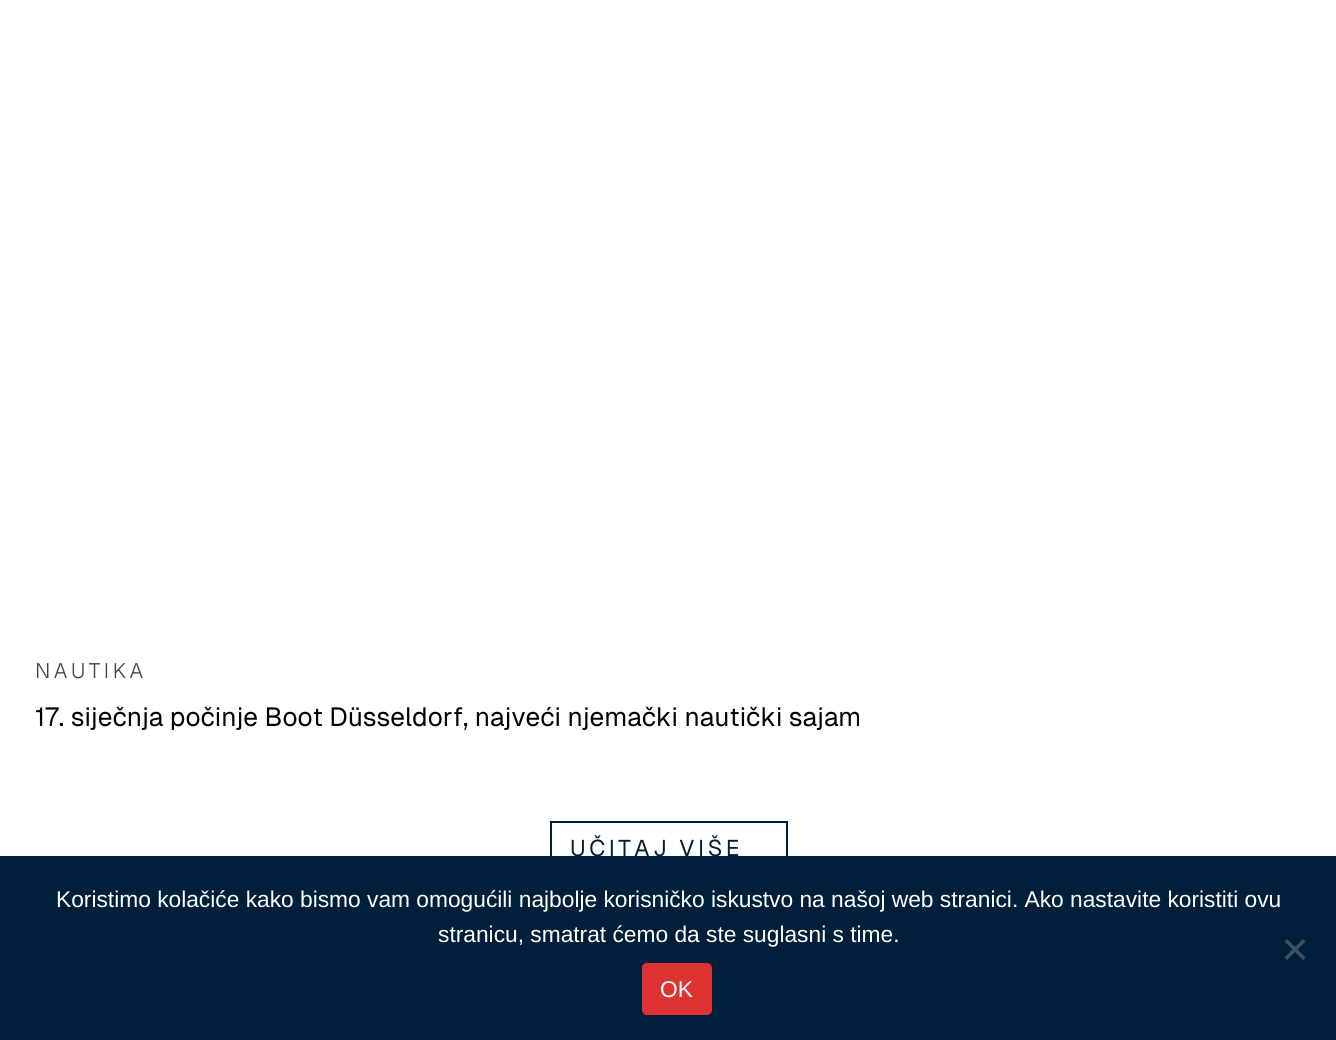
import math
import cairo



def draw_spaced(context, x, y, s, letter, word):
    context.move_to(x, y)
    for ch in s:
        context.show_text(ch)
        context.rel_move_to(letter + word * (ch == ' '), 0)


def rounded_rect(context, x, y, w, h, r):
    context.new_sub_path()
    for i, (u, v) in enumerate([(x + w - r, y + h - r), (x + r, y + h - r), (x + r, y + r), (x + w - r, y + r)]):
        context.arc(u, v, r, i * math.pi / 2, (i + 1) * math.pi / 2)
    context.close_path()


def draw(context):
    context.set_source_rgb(1, 1, 1)
    context.paint()
    context.rectangle(551, 822, 236, 52)
    context.set_source_rgb(0, 31 / 255, 58 / 255)
    context.stroke()
    context.rectangle(0, 856, 1336, 184)
    context.fill()
    context.set_source_rgb(64 / 255, 80 / 255, 93 / 255)
    context.new_path()
    context.move_to(1303, 939)
    context.line_to(1305.5, 941.5)
    context.line_to(1287, 960)
    context.line_to(1284.5, 957.5)
    context.close_path()
    context.fill()
    context.new_path()
    context.move_to(1284.5, 941.5)
    context.line_to(1287, 939)
    context.line_to(1305.5, 957.5)
    context.line_to(1303, 960)
    context.close_path()
    context.fill()
    context.set_source_rgb(221 / 255, 51 / 255, 51 / 255)
    rounded_rect(context, 642, 963, 70, 52, 5)
    context.fill()
    context.select_font_face("Geist Light")
    context.set_font_size(21)
    context.set_source_rgb(69 / 255, 69 / 255, 69 / 255)
    draw_spaced(context, 35, 678, "NAUTIKA", 3.5, 0)
    context.select_font_face("Geist")
    context.set_font_size(26.25)
    context.set_source_rgb(0, 0, 0)
    context.move_to(35, 726)
    context.show_text("17. siječnja počinje Boot Düsseldorf, najveći njemački nautički sajam")
    context.set_font_size(22.75)
    context.set_source_rgb(0, 31 / 255, 58 / 255)
    draw_spaced(context, 570, 856, "UČITAJ VIŠE", 3.5, 0)
    context.select_font_face("Liberation Sans")
    context.set_source_rgb(1, 1, 1)
    context.move_to(56, 907)
    context.show_text("Koristimo kolačiće kako bismo vam omogućili najbolje korisničko iskustvo na našoj web stranici. Ako nastavite koristiti ovu")
    context.move_to(438, 942)
    context.show_text("stranicu, smatrat ćemo da ste suglasni s time.")
    context.move_to(660, 997)
    context.show_text("OK")


surface = cairo.ImageSurface(cairo.Format.RGB24, 1336, 1040)
context = cairo.Context(surface)
options = cairo.FontOptions()
options.set_hint_metrics(cairo.HintMetrics.OFF)
options.set_hint_style(cairo.HintStyle.NONE)
context.set_font_options(options)
context.set_miter_limit(4)
draw(context)
surface.write_to_png("out.png")
